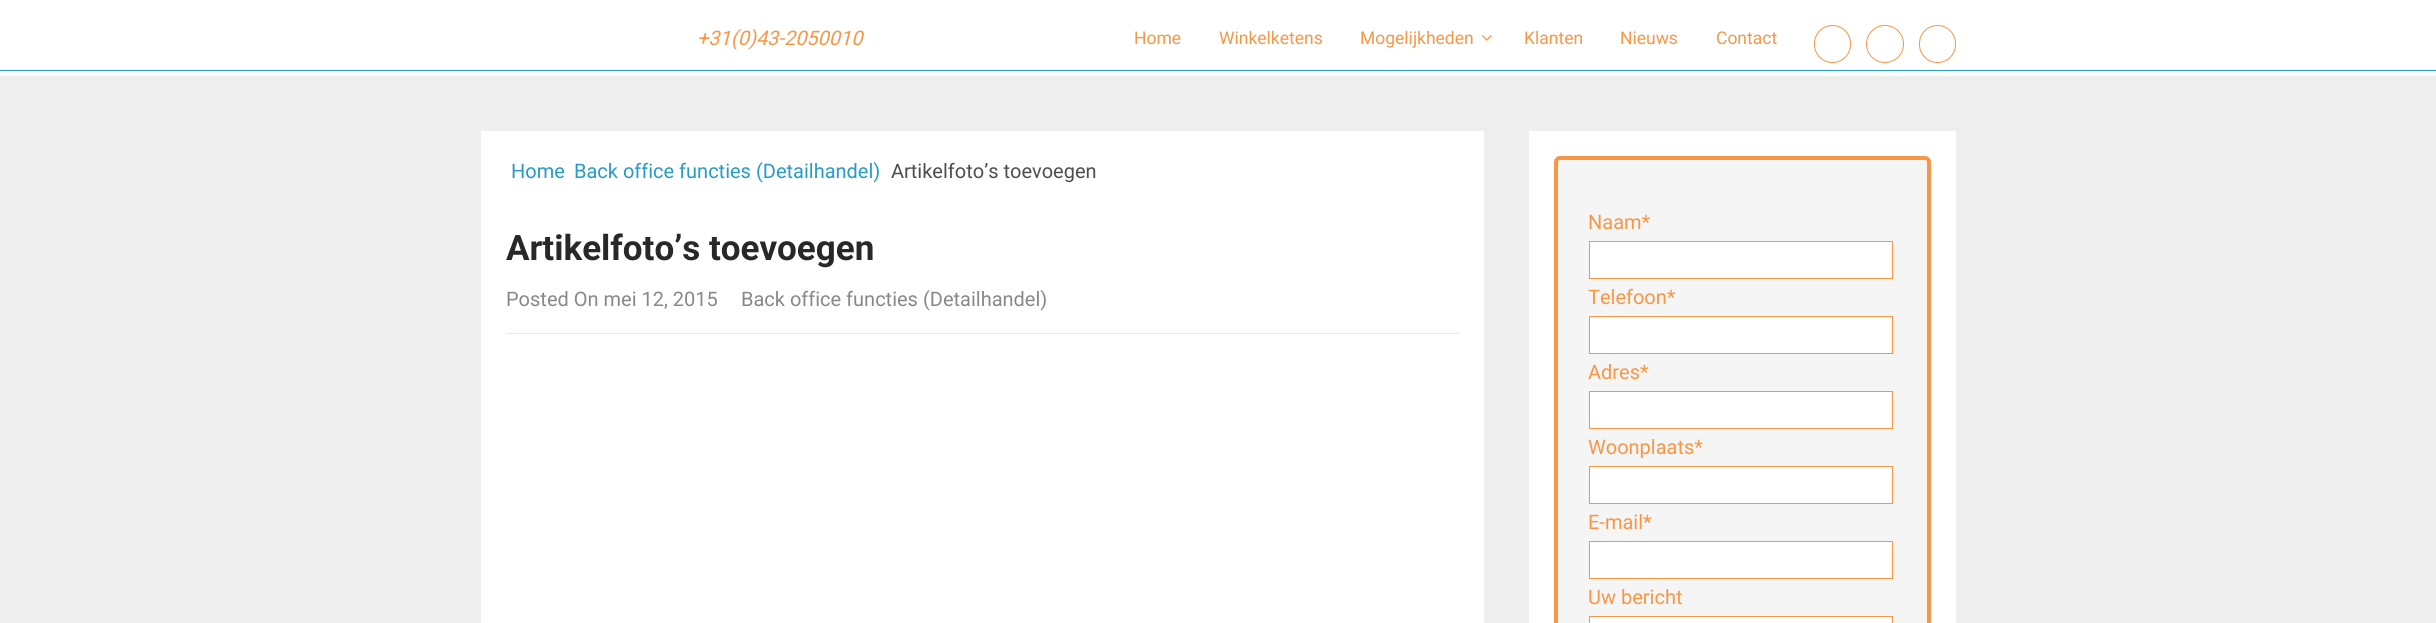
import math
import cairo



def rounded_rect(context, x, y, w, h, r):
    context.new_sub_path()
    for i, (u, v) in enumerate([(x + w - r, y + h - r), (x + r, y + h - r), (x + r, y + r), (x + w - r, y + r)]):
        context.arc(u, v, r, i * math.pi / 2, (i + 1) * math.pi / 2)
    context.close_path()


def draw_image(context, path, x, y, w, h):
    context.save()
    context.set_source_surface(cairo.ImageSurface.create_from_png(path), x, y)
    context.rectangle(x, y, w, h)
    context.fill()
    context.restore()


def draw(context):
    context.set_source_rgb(238 / 255, 238 / 255, 238 / 255)
    context.paint()
    context.set_source_rgb(1, 1, 1)
    context.rectangle(0, 71, 2436, 5)
    context.fill()
    context.rectangle(0, 0, 2436, 70)
    context.fill()
    context.set_source_rgb(38 / 255, 155 / 255, 198 / 255)
    context.rectangle(0, 70, 2436, 1)
    context.fill()
    draw_image(context, "images/1.png", 1482, 35, 10, 6)
    rounded_rect(context, 1814.5, 25.5, 36, 37, 18)
    context.set_source_rgb(248 / 255, 150 / 255, 70 / 255)
    context.set_line_width(1)
    context.stroke()
    context.arc(1885, 44, 18.5, 0, 2 * math.pi)
    context.stroke()
    rounded_rect(context, 1919.5, 25.5, 36, 37, 18)
    context.stroke()
    context.set_source_rgb(1, 1, 1)
    context.rectangle(481, 131, 1003, 492)
    context.fill()
    context.set_source_rgb(232 / 255, 232 / 255, 232 / 255)
    context.rectangle(506, 333, 953, 1)
    context.fill()
    context.set_source_rgb(1, 1, 1)
    context.rectangle(1529, 131, 427, 492)
    context.fill()
    context.set_source_rgb(245 / 255, 245 / 255, 245 / 255)
    rounded_rect(context, 1556, 158, 373, 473, 4)
    context.fill_preserve()
    context.set_source_rgb(248 / 255, 150 / 255, 70 / 255)
    context.set_line_width(4)
    context.stroke()
    context.set_source_rgb(1, 1, 1)
    context.rectangle(1589.5, 241.5, 303, 37)
    context.fill_preserve()
    context.set_source_rgb(248 / 255, 150 / 255, 70 / 255)
    context.set_line_width(1)
    context.stroke()
    context.set_source_rgb(1, 1, 1)
    context.rectangle(1589.5, 316.5, 303, 37)
    context.fill_preserve()
    context.set_source_rgb(248 / 255, 150 / 255, 70 / 255)
    context.stroke()
    context.set_source_rgb(1, 1, 1)
    context.rectangle(1589.5, 391.5, 303, 37)
    context.fill_preserve()
    context.set_source_rgb(248 / 255, 150 / 255, 70 / 255)
    context.stroke()
    context.set_source_rgb(1, 1, 1)
    context.rectangle(1589.5, 466.5, 303, 37)
    context.fill_preserve()
    context.set_source_rgb(248 / 255, 150 / 255, 70 / 255)
    context.stroke()
    context.set_source_rgb(1, 1, 1)
    context.rectangle(1589.5, 541.5, 303, 37)
    context.fill_preserve()
    context.set_source_rgb(248 / 255, 150 / 255, 70 / 255)
    context.stroke()
    context.set_source_rgb(1, 1, 1)
    context.rectangle(1589.5, 616.5, 303, 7)
    context.fill_preserve()
    context.set_source_rgb(248 / 255, 150 / 255, 70 / 255)
    context.stroke()
    context.select_font_face("Roboto", cairo.FontSlant.ITALIC)
    context.set_font_size(20)
    context.move_to(697, 45)
    context.show_text("+31(0)43-2050010")
    context.select_font_face("Roboto")
    context.set_font_size(17.5)
    context.move_to(1134, 44)
    context.show_text("Home")
    context.move_to(1219, 44)
    context.show_text("Winkelketens")
    context.move_to(1360, 44)
    context.show_text("Mogelijkheden")
    context.move_to(1524, 44)
    context.show_text("Klanten")
    context.move_to(1620, 44)
    context.show_text("Nieuws")
    context.move_to(1716, 44)
    context.show_text("Contact")
    context.set_font_size(20)
    context.set_source_rgb(38 / 255, 155 / 255, 198 / 255)
    context.move_to(511, 178)
    context.show_text("Home")
    context.move_to(574, 178)
    context.show_text("Back office functies (Detailhandel)")
    context.set_source_rgb(78 / 255, 78 / 255, 78 / 255)
    context.move_to(891, 178)
    context.show_text("Artikelfoto’s toevoegen")
    context.select_font_face("Roboto", cairo.FontSlant.NORMAL, cairo.FontWeight.BOLD)
    context.set_font_size(35)
    context.set_source_rgb(40 / 255, 40 / 255, 40 / 255)
    context.move_to(506, 260)
    context.show_text("Artikelfoto’s toevoegen")
    context.select_font_face("Roboto")
    context.set_font_size(20)
    context.set_source_rgb(136 / 255, 136 / 255, 136 / 255)
    context.move_to(506, 306)
    context.show_text("Posted On mei 12, 2015")
    context.move_to(741, 306)
    context.show_text("Back office functies (Detailhandel)")
    context.set_source_rgb(248 / 255, 150 / 255, 70 / 255)
    context.move_to(1588, 229)
    context.show_text("Naam*")
    context.move_to(1588, 304)
    context.show_text("Telefoon*")
    context.move_to(1588, 379)
    context.show_text("Adres*")
    context.move_to(1588, 454)
    context.show_text("Woonplaats*")
    context.move_to(1588, 529)
    context.show_text("E-mail*")
    context.move_to(1588, 604)
    context.show_text("Uw bericht")


surface = cairo.ImageSurface(cairo.Format.RGB24, 2436, 623)
context = cairo.Context(surface)
options = cairo.FontOptions()
options.set_hint_metrics(cairo.HintMetrics.OFF)
options.set_hint_style(cairo.HintStyle.NONE)
context.set_font_options(options)
context.set_miter_limit(4)
draw(context)
surface.write_to_png("out.png")
